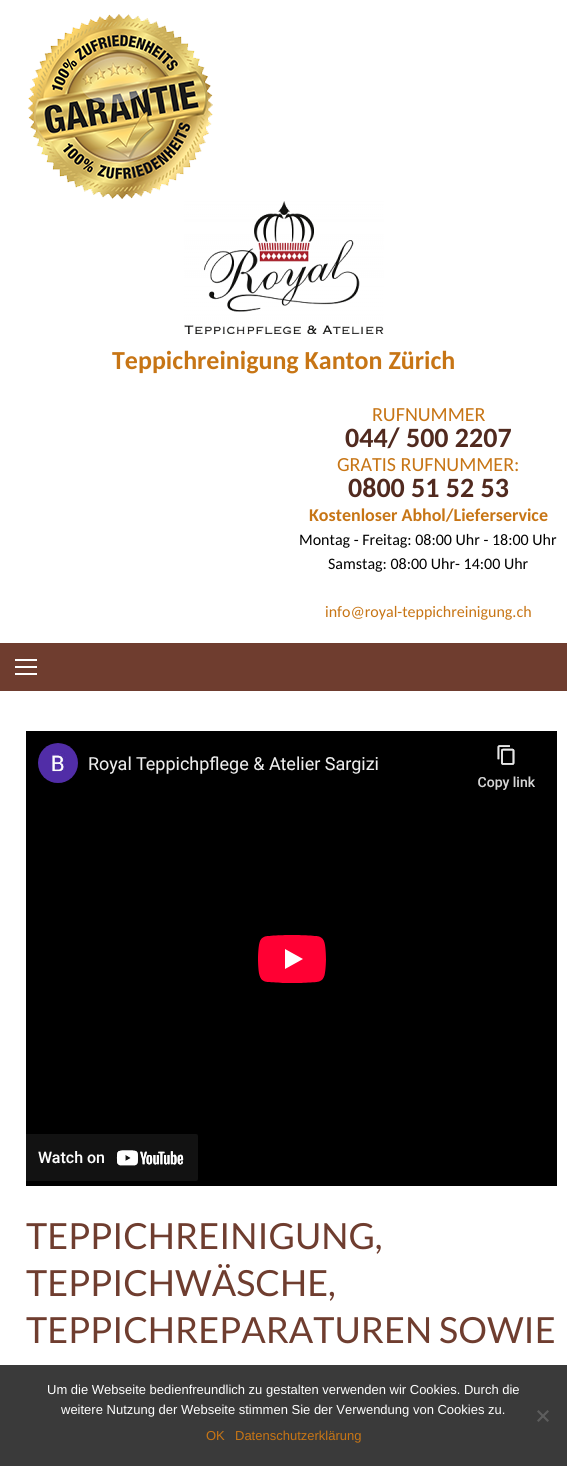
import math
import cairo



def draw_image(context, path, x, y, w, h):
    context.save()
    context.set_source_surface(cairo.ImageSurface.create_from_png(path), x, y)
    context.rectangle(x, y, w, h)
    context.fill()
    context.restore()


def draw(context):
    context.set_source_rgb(1, 1, 1)
    context.paint()
    draw_image(context, "images/1.png", 28, 14, 185, 185)
    draw_image(context, "images/2.png", 184, 201, 200, 133)
    context.set_source_rgb(111 / 255, 61 / 255, 47 / 255)
    context.rectangle(0, 643, 567, 48)
    context.fill()
    context.set_source_rgb(1, 1, 1)
    context.rectangle(15, 659, 22, 2)
    context.fill()
    context.rectangle(15, 666, 22, 2)
    context.fill()
    context.rectangle(15, 673, 22, 2)
    context.fill()
    draw_image(context, "images/3.png", 26, 731, 531, 455)
    context.set_source_rgb(58 / 255, 58 / 255, 58 / 255)
    context.rectangle(0, 1365, 567, 101)
    context.fill()
    context.set_source_rgb(93 / 255, 93 / 255, 93 / 255)
    context.new_path()
    context.move_to(547.5, 1410)
    context.line_to(549, 1411.5)
    context.line_to(538.5, 1422)
    context.line_to(537, 1420.5)
    context.close_path()
    context.fill()
    context.new_path()
    context.move_to(537, 1411.5)
    context.line_to(538.5, 1410)
    context.line_to(549, 1420.5)
    context.line_to(547.5, 1422)
    context.close_path()
    context.fill()
    context.select_font_face("Carlito", cairo.FontSlant.NORMAL, cairo.FontWeight.BOLD)
    context.set_font_size(26)
    context.set_source_rgb(199 / 255, 117 / 255, 21 / 255)
    context.move_to(112, 369)
    context.show_text("Teppichreinigung Kanton Zürich")
    context.select_font_face("Carlito")
    context.set_font_size(20)
    context.move_to(372, 421)
    context.show_text("RUFNUMMER")
    context.select_font_face("Carlito", cairo.FontSlant.NORMAL, cairo.FontWeight.BOLD)
    context.set_font_size(28)
    context.set_source_rgb(81 / 255, 42 / 255, 31 / 255)
    context.move_to(345, 447)
    context.show_text("044/ 500 2207")
    context.select_font_face("Carlito")
    context.set_font_size(20)
    context.set_source_rgb(199 / 255, 117 / 255, 21 / 255)
    context.move_to(337, 471)
    context.show_text("GRATIS RUFNUMMER:")
    context.select_font_face("Carlito", cairo.FontSlant.NORMAL, cairo.FontWeight.BOLD)
    context.set_font_size(28)
    context.set_source_rgb(81 / 255, 42 / 255, 31 / 255)
    context.move_to(348, 497)
    context.show_text("0800 51 52 53")
    context.set_font_size(18)
    context.set_source_rgb(199 / 255, 117 / 255, 21 / 255)
    context.move_to(309, 521)
    context.show_text("Kostenloser Abhol/Lieferservice")
    context.select_font_face("Carlito")
    context.set_font_size(16)
    context.set_source_rgb(0, 0, 0)
    context.move_to(299, 545)
    context.show_text("Montag - Freitag: 08:00 Uhr - 18:00 Uhr")
    context.move_to(328, 569)
    context.show_text("Samstag: 08:00 Uhr- 14:00 Uhr")
    context.set_source_rgb(199 / 255, 117 / 255, 21 / 255)
    context.move_to(325, 617)
    context.show_text("info@royal-teppichreinigung.ch")
    context.select_font_face("Lato")
    context.set_font_size(36)
    context.set_source_rgb(111 / 255, 61 / 255, 47 / 255)
    context.move_to(26, 1249)
    context.show_text("TEPPICHREINIGUNG,")
    context.move_to(26, 1296)
    context.show_text("TEPPICHWÄSCHE,")
    context.move_to(26, 1343)
    context.show_text("TEPPICHREPARATUREN SOWIE")
    context.select_font_face("Liberation Sans")
    context.set_font_size(13)
    context.set_source_rgb(1, 1, 1)
    context.move_to(47, 1394)
    context.show_text("Um die Webseite bedienfreundlich zu gestalten verwenden wir Cookies. Durch die")
    context.move_to(61, 1414)
    context.show_text("weitere Nutzung der Webseite stimmen Sie der Verwendung von Cookies zu.")
    context.set_source_rgb(199 / 255, 117 / 255, 21 / 255)
    context.move_to(206, 1440)
    context.show_text("OK")
    context.move_to(235, 1440)
    context.show_text("Datenschutzerklärung")


surface = cairo.ImageSurface(cairo.Format.RGB24, 567, 1466)
context = cairo.Context(surface)
options = cairo.FontOptions()
options.set_hint_metrics(cairo.HintMetrics.OFF)
options.set_hint_style(cairo.HintStyle.NONE)
context.set_font_options(options)
context.set_miter_limit(4)
draw(context)
surface.write_to_png("out.png")
